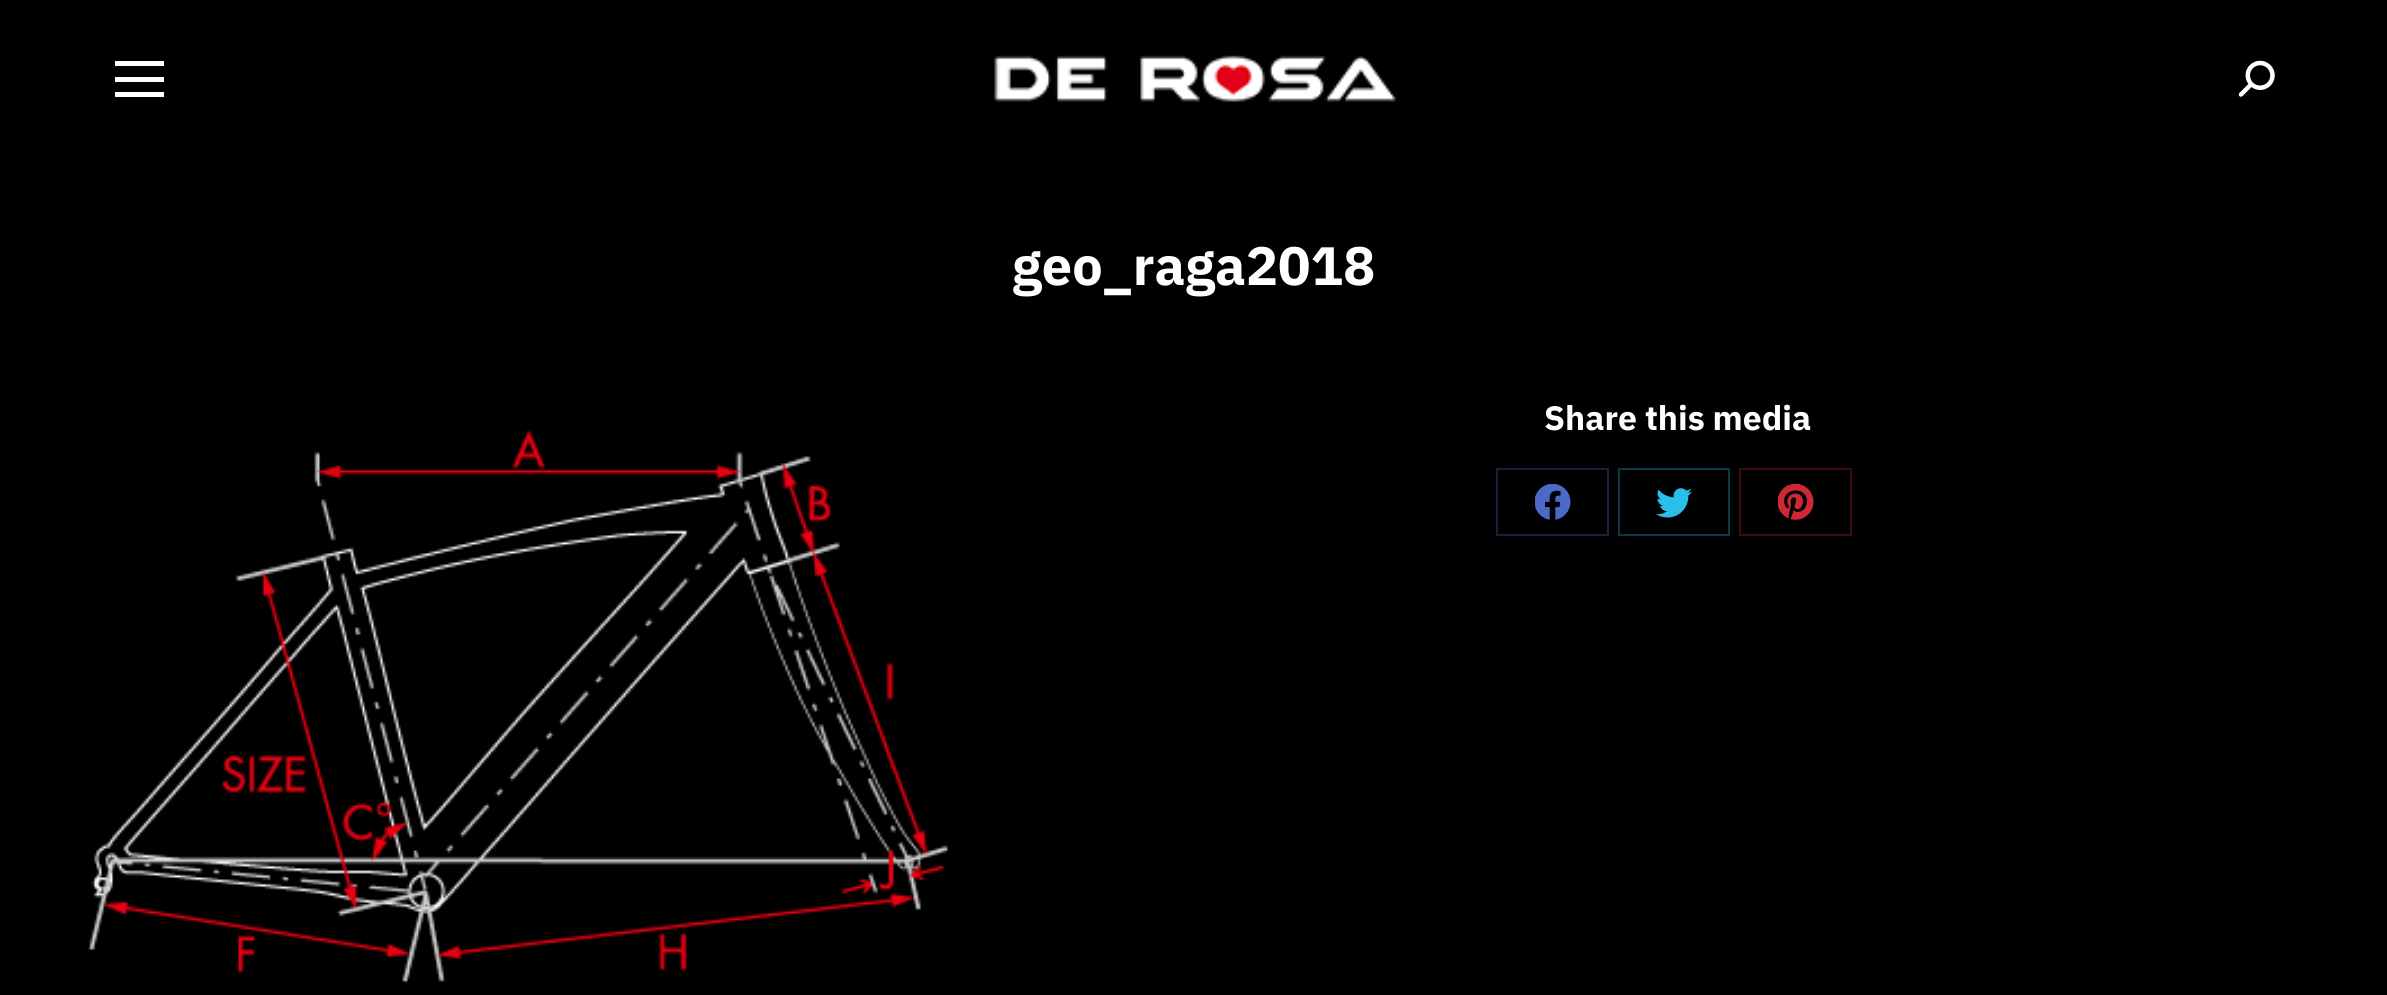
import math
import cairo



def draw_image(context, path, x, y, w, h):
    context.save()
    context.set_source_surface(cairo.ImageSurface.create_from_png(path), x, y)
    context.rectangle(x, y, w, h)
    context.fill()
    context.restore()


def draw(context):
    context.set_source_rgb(0, 0, 0)
    context.paint()
    context.set_source_rgb(1, 1, 1)
    context.rectangle(115, 61, 49, 5)
    context.fill()
    context.rectangle(115, 77, 49, 5)
    context.fill()
    context.rectangle(115, 92, 49, 5)
    context.fill()
    draw_image(context, "images/1.png", 994, 55, 402, 47)
    draw_image(context, "images/2.png", 2238, 60, 37, 37)
    context.rectangle(1497, 469, 111, 66)
    context.set_source_rgb(23 / 255, 32 / 255, 60 / 255)
    context.stroke()
    draw_image(context, "images/3.png", 1535, 484, 36, 36)
    context.rectangle(1619, 469, 110, 66)
    context.set_source_rgb(13 / 255, 57 / 255, 71 / 255)
    context.stroke()
    draw_image(context, "images/4.png", 1656, 488, 36, 30)
    context.rectangle(1740, 469, 111, 66)
    context.set_source_rgb(62 / 255, 12 / 255, 16 / 255)
    context.stroke()
    draw_image(context, "images/5.png", 1778, 484, 36, 36)
    draw_image(context, "images/6.png", 87, 429, 861, 555)
    context.select_font_face("IBM Plex Sans", cairo.FontSlant.NORMAL, cairo.FontWeight.BOLD)
    context.set_font_size(54)
    context.set_source_rgb(1, 1, 1)
    context.move_to(1012, 285)
    context.show_text("geo_raga2018")
    context.set_font_size(33.75)
    context.move_to(1544, 430)
    context.show_text("Share this media")


surface = cairo.ImageSurface(cairo.Format.RGB24, 2387, 995)
context = cairo.Context(surface)
options = cairo.FontOptions()
options.set_hint_metrics(cairo.HintMetrics.OFF)
options.set_hint_style(cairo.HintStyle.NONE)
context.set_font_options(options)
context.set_miter_limit(4)
draw(context)
surface.write_to_png("out.png")
